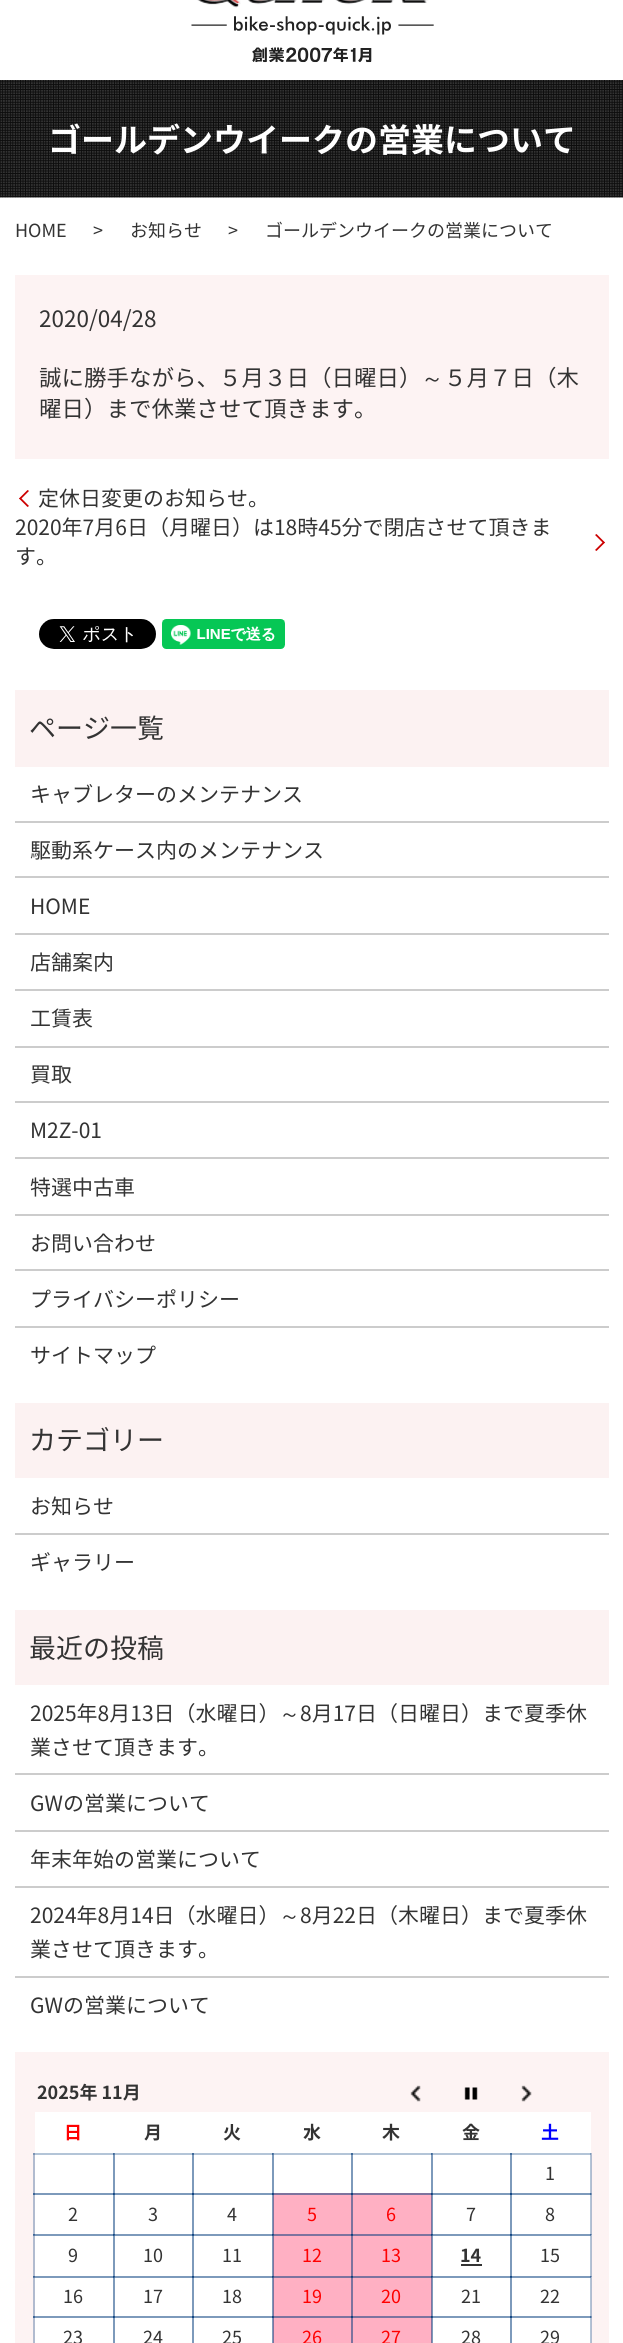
import math
import cairo



def rounded_rect(context, x, y, w, h, r):
    context.new_sub_path()
    for i, (u, v) in enumerate([(x + w - r, y + h - r), (x + r, y + h - r), (x + r, y + r), (x + w - r, y + r)]):
        context.arc(u, v, r, i * math.pi / 2, (i + 1) * math.pi / 2)
    context.close_path()


def draw_shadow(context, x, y, w, h, r, blur, alpha):
    context.push_group_with_content(cairo.Content.ALPHA)
    context.set_operator(cairo.Operator.SOURCE)
    for i in range(15, -16, -2):
        e = blur * i / 6
        if min(w, h) + 2 * e > 0:
            context.set_source_rgba(0, 0, 0, alpha * math.erfc((i - 1) / 8.5) / 2)
            rounded_rect(context, x - e, y - e, w + 2 * e, h + 2 * e, max(0, min(r + e + blur * .6, min(w, h) / 2 + e)))
            context.fill()
    context.mask(context.pop_group())


def draw_image(context, path, x, y, w, h):
    context.save()
    context.set_source_surface(cairo.ImageSurface.create_from_png(path), x, y)
    context.rectangle(x, y, w, h)
    context.fill()
    context.restore()


def draw(context):
    context.set_source_rgb(1, 1, 1)
    context.paint()
    draw_image(context, "images/2.png", 0, 80, 623, 118)
    context.set_source_rgb(0, 0, 0)
    draw_shadow(context, 0, -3, 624, 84, 0, 1, 0.1)
    context.set_source_rgb(1, 1, 1)
    context.rectangle(0, 0, 623, 80)
    context.fill()
    draw_image(context, "images/1.png", 191, 0, 243, 63)
    context.set_source_rgb(253 / 255, 243 / 255, 243 / 255)
    context.rectangle(15, 275, 594, 184)
    context.fill()
    context.set_source_rgb(204 / 255, 0, 0)
    context.new_path()
    context.move_to(19, 498.5)
    context.line_to(27.5, 490)
    context.line_to(29, 491)
    context.line_to(20.5, 499.5)
    context.close_path()
    context.fill()
    context.new_path()
    context.move_to(27.5, 507)
    context.line_to(19, 498.5)
    context.line_to(20.5, 497.5)
    context.line_to(29, 506)
    context.close_path()
    context.fill()
    context.new_path()
    context.move_to(596.5, 534)
    context.line_to(605, 542.5)
    context.line_to(603.5, 543.5)
    context.line_to(595, 535)
    context.close_path()
    context.fill()
    context.new_path()
    context.move_to(605, 542.5)
    context.line_to(596.5, 551)
    context.line_to(595, 550)
    context.line_to(603.5, 541.5)
    context.close_path()
    context.fill()
    draw_image(context, "images/3.png", 39, 619, 117, 30)
    draw_image(context, "images/4.png", 162, 619, 123, 30)
    context.set_source_rgb(252 / 255, 242 / 255, 242 / 255)
    context.rectangle(15, 690, 594, 77)
    context.fill()
    context.set_source_rgb(204 / 255, 204 / 255, 204 / 255)
    context.rectangle(15, 821, 594, 2)
    context.fill()
    context.rectangle(15, 876, 594, 2)
    context.fill()
    context.rectangle(15, 933, 594, 2)
    context.fill()
    context.rectangle(15, 989, 594, 2)
    context.fill()
    context.rectangle(15, 1046, 594, 2)
    context.fill()
    context.rectangle(15, 1101, 594, 2)
    context.fill()
    context.rectangle(15, 1157, 594, 2)
    context.fill()
    context.rectangle(15, 1214, 594, 2)
    context.fill()
    context.rectangle(15, 1269, 594, 2)
    context.fill()
    context.rectangle(15, 1326, 594, 2)
    context.fill()
    context.set_source_rgb(252 / 255, 242 / 255, 242 / 255)
    context.rectangle(15, 1403, 594, 75)
    context.fill()
    context.set_source_rgb(204 / 255, 204 / 255, 204 / 255)
    context.rectangle(15, 1533, 594, 2)
    context.fill()
    context.set_source_rgb(252 / 255, 242 / 255, 242 / 255)
    context.rectangle(15, 1610, 594, 75)
    context.fill()
    context.set_source_rgb(204 / 255, 204 / 255, 204 / 255)
    context.rectangle(15, 1773, 594, 2)
    context.fill()
    context.rectangle(15, 1830, 594, 2)
    context.fill()
    context.rectangle(15, 1886, 594, 2)
    context.fill()
    context.rectangle(15, 1976, 594, 2)
    context.fill()
    context.set_source_rgb(253 / 255, 243 / 255, 243 / 255)
    context.rectangle(15, 2052, 594, 291)
    context.fill()
    context.set_source_rgb(177 / 255, 187 / 255, 207 / 255)
    context.rectangle(33, 2153, 2, 190)
    context.fill()
    context.set_source_rgb(124 / 255, 148 / 255, 181 / 255)
    context.rectangle(33, 2153, 2, 2)
    context.fill()
    context.set_source_rgb(177 / 255, 187 / 255, 207 / 255)
    context.rectangle(591, 2153, 1, 190)
    context.fill()
    context.set_source_rgb(61 / 255, 102 / 255, 151 / 255)
    context.rectangle(33, 2193, 2, 2)
    context.fill()
    context.set_source_rgb(124 / 255, 148 / 255, 181 / 255)
    context.rectangle(590, 2193, 2, 2)
    context.fill()
    context.set_source_rgb(87 / 255, 121 / 255, 163 / 255)
    context.rectangle(33, 2235, 2, 1)
    context.fill()
    context.set_source_rgb(61 / 255, 102 / 255, 151 / 255)
    context.rectangle(33, 2234, 2, 1)
    context.fill()
    context.set_source_rgb(124 / 255, 148 / 255, 181 / 255)
    context.rectangle(590, 2234, 2, 1)
    context.fill()
    context.set_source_rgb(87 / 255, 121 / 255, 163 / 255)
    context.rectangle(33, 2277, 2, 1)
    context.fill()
    context.set_source_rgb(61 / 255, 102 / 255, 151 / 255)
    context.rectangle(33, 2276, 2, 1)
    context.fill()
    context.set_source_rgb(124 / 255, 148 / 255, 181 / 255)
    context.rectangle(590, 2276, 2, 1)
    context.fill()
    context.set_source_rgb(61 / 255, 102 / 255, 151 / 255)
    context.rectangle(33, 2316, 2, 2)
    context.fill()
    context.set_source_rgb(124 / 255, 148 / 255, 181 / 255)
    context.rectangle(590, 2316, 2, 2)
    context.fill()
    draw_image(context, "images/5.png", 410, 2085, 11, 17)
    draw_image(context, "images/6.png", 464, 2087, 14, 13)
    draw_image(context, "images/7.png", 521, 2085, 11, 17)
    context.set_source_rgb(1, 1, 1)
    context.rectangle(35, 2112, 556, 41)
    context.fill()
    context.rectangle(35, 2155, 78, 38)
    context.fill()
    context.set_source_rgb(179 / 255, 196 / 255, 215 / 255)
    context.rectangle(35, 2153, 79, 2)
    context.fill()
    context.set_source_rgb(125 / 255, 154 / 255, 187 / 255)
    context.rectangle(113, 2153, 2, 40)
    context.fill()
    context.set_source_rgb(62 / 255, 105 / 255, 154 / 255)
    context.rectangle(113, 2153, 1, 2)
    context.fill()
    context.set_source_rgb(1, 1, 1)
    context.rectangle(115, 2155, 77, 38)
    context.fill()
    context.set_source_rgb(179 / 255, 196 / 255, 215 / 255)
    context.rectangle(114, 2153, 159, 2)
    context.fill()
    context.set_source_rgb(88 / 255, 125 / 255, 168 / 255)
    context.rectangle(114, 2153, 1, 2)
    context.fill()
    context.set_source_rgb(125 / 255, 154 / 255, 187 / 255)
    context.rectangle(192, 2153, 2, 40)
    context.fill()
    context.set_source_rgb(62 / 255, 105 / 255, 154 / 255)
    context.rectangle(192, 2153, 2, 2)
    context.fill()
    context.set_source_rgb(1, 1, 1)
    context.rectangle(194, 2155, 78, 38)
    context.fill()
    context.set_source_rgb(125 / 255, 154 / 255, 187 / 255)
    context.rectangle(272, 2153, 2, 40)
    context.fill()
    context.set_source_rgb(62 / 255, 105 / 255, 154 / 255)
    context.rectangle(272, 2153, 1, 2)
    context.fill()
    context.set_source_rgb(1, 1, 1)
    context.rectangle(274, 2155, 77, 38)
    context.fill()
    context.set_source_rgb(179 / 255, 196 / 255, 215 / 255)
    context.rectangle(273, 2153, 159, 2)
    context.fill()
    context.set_source_rgb(88 / 255, 125 / 255, 168 / 255)
    context.rectangle(273, 2153, 1, 2)
    context.fill()
    context.set_source_rgb(125 / 255, 154 / 255, 187 / 255)
    context.rectangle(351, 2153, 2, 40)
    context.fill()
    context.set_source_rgb(62 / 255, 105 / 255, 154 / 255)
    context.rectangle(351, 2153, 2, 2)
    context.fill()
    context.set_source_rgb(1, 1, 1)
    context.rectangle(353, 2155, 78, 38)
    context.fill()
    context.set_source_rgb(125 / 255, 154 / 255, 187 / 255)
    context.rectangle(431, 2153, 2, 40)
    context.fill()
    context.set_source_rgb(62 / 255, 105 / 255, 154 / 255)
    context.rectangle(431, 2153, 1, 2)
    context.fill()
    context.set_source_rgb(1, 1, 1)
    context.rectangle(433, 2155, 77, 38)
    context.fill()
    context.set_source_rgb(179 / 255, 196 / 255, 215 / 255)
    context.rectangle(432, 2153, 80, 2)
    context.fill()
    context.set_source_rgb(88 / 255, 125 / 255, 168 / 255)
    context.rectangle(432, 2153, 1, 2)
    context.fill()
    context.set_source_rgb(125 / 255, 154 / 255, 187 / 255)
    context.rectangle(510, 2153, 2, 40)
    context.fill()
    context.set_source_rgb(1, 1, 1)
    context.rectangle(512, 2155, 78, 38)
    context.fill()
    context.set_source_rgb(179 / 255, 196 / 255, 215 / 255)
    context.rectangle(590, 2153, 1, 190)
    context.fill()
    context.rectangle(510, 2153, 81, 2)
    context.fill()
    context.set_source_rgb(62 / 255, 105 / 255, 154 / 255)
    context.rectangle(510, 2153, 2, 2)
    context.fill()
    context.set_source_rgb(125 / 255, 154 / 255, 187 / 255)
    context.rectangle(590, 2153, 1, 2)
    context.fill()
    context.set_source_rgb(1, 1, 1)
    context.rectangle(35, 2195, 78, 39)
    context.fill()
    context.set_source_rgb(125 / 255, 154 / 255, 187 / 255)
    context.rectangle(35, 2193, 79, 2)
    context.fill()
    context.rectangle(113, 2193, 2, 42)
    context.fill()
    context.set_source_rgb(15 / 255, 69 / 255, 130 / 255)
    context.rectangle(113, 2193, 1, 2)
    context.fill()
    context.set_source_rgb(125 / 255, 154 / 255, 187 / 255)
    context.rectangle(35, 2234, 79, 2)
    context.fill()
    context.set_source_rgb(15 / 255, 69 / 255, 130 / 255)
    context.rectangle(113, 2234, 1, 1)
    context.fill()
    context.set_source_rgb(1, 1, 1)
    context.rectangle(115, 2195, 77, 39)
    context.fill()
    context.set_source_rgb(125 / 255, 154 / 255, 187 / 255)
    context.rectangle(114, 2193, 159, 2)
    context.fill()
    context.set_source_rgb(30 / 255, 81 / 255, 137 / 255)
    context.rectangle(114, 2193, 1, 2)
    context.fill()
    context.set_source_rgb(125 / 255, 154 / 255, 187 / 255)
    context.rectangle(192, 2193, 2, 42)
    context.fill()
    context.set_source_rgb(15 / 255, 69 / 255, 130 / 255)
    context.rectangle(192, 2193, 2, 2)
    context.fill()
    context.set_source_rgb(125 / 255, 154 / 255, 187 / 255)
    context.rectangle(114, 2234, 80, 1)
    context.fill()
    context.set_source_rgb(30 / 255, 81 / 255, 137 / 255)
    context.rectangle(114, 2234, 1, 1)
    context.fill()
    context.set_source_rgb(15 / 255, 69 / 255, 130 / 255)
    context.rectangle(192, 2234, 2, 1)
    context.fill()
    context.set_source_rgb(1, 1, 1)
    context.rectangle(194, 2195, 78, 39)
    context.fill()
    context.set_source_rgb(125 / 255, 154 / 255, 187 / 255)
    context.rectangle(272, 2193, 1, 42)
    context.fill()
    context.set_source_rgb(15 / 255, 69 / 255, 130 / 255)
    context.rectangle(272, 2193, 1, 2)
    context.fill()
    context.set_source_rgb(125 / 255, 154 / 255, 187 / 255)
    context.rectangle(194, 2234, 79, 1)
    context.fill()
    context.set_source_rgb(15 / 255, 69 / 255, 130 / 255)
    context.rectangle(272, 2234, 1, 1)
    context.fill()
    context.set_source_rgb(1, 176 / 255, 195 / 255)
    context.rectangle(274, 2195, 77, 39)
    context.fill()
    context.set_source_rgb(125 / 255, 115 / 255, 158 / 255)
    context.rectangle(273, 2193, 1, 150)
    context.fill()
    context.rectangle(273, 2193, 159, 2)
    context.fill()
    context.set_source_rgb(30 / 255, 71 / 255, 131 / 255)
    context.rectangle(273, 2193, 1, 2)
    context.fill()
    context.set_source_rgb(125 / 255, 115 / 255, 158 / 255)
    context.rectangle(351, 2193, 2, 42)
    context.fill()
    context.set_source_rgb(15 / 255, 64 / 255, 126 / 255)
    context.rectangle(351, 2193, 2, 2)
    context.fill()
    context.set_source_rgb(125 / 255, 115 / 255, 158 / 255)
    context.rectangle(273, 2234, 80, 2)
    context.fill()
    context.set_source_rgb(30 / 255, 71 / 255, 131 / 255)
    context.rectangle(273, 2234, 1, 1)
    context.fill()
    context.set_source_rgb(15 / 255, 64 / 255, 126 / 255)
    context.rectangle(351, 2234, 2, 1)
    context.fill()
    context.set_source_rgb(1, 176 / 255, 195 / 255)
    context.rectangle(353, 2195, 78, 39)
    context.fill()
    context.set_source_rgb(125 / 255, 115 / 255, 158 / 255)
    context.rectangle(431, 2193, 1, 42)
    context.fill()
    context.set_source_rgb(15 / 255, 64 / 255, 126 / 255)
    context.rectangle(431, 2193, 1, 2)
    context.fill()
    context.set_source_rgb(125 / 255, 115 / 255, 158 / 255)
    context.rectangle(353, 2234, 79, 2)
    context.fill()
    context.set_source_rgb(15 / 255, 64 / 255, 126 / 255)
    context.rectangle(431, 2234, 1, 1)
    context.fill()
    context.set_source_rgb(1, 1, 1)
    context.rectangle(433, 2195, 77, 39)
    context.fill()
    context.set_source_rgb(125 / 255, 154 / 255, 187 / 255)
    context.rectangle(432, 2193, 1, 150)
    context.fill()
    context.rectangle(432, 2193, 80, 2)
    context.fill()
    context.set_source_rgb(30 / 255, 81 / 255, 137 / 255)
    context.rectangle(432, 2193, 1, 2)
    context.fill()
    context.set_source_rgb(125 / 255, 154 / 255, 187 / 255)
    context.rectangle(510, 2193, 2, 42)
    context.fill()
    context.rectangle(432, 2234, 80, 2)
    context.fill()
    context.set_source_rgb(30 / 255, 81 / 255, 137 / 255)
    context.rectangle(432, 2234, 1, 1)
    context.fill()
    context.set_source_rgb(1, 1, 1)
    context.rectangle(512, 2195, 78, 39)
    context.fill()
    context.set_source_rgb(125 / 255, 154 / 255, 187 / 255)
    context.rectangle(510, 2193, 81, 2)
    context.fill()
    context.set_source_rgb(15 / 255, 69 / 255, 130 / 255)
    context.rectangle(510, 2193, 2, 2)
    context.fill()
    context.set_source_rgb(62 / 255, 105 / 255, 154 / 255)
    context.rectangle(590, 2193, 1, 2)
    context.fill()
    context.set_source_rgb(1, 1, 1)
    context.rectangle(35, 2236, 78, 40)
    context.fill()
    context.set_source_rgb(125 / 255, 154 / 255, 187 / 255)
    context.rectangle(113, 2235, 2, 41)
    context.fill()
    context.set_source_rgb(30 / 255, 81 / 255, 137 / 255)
    context.rectangle(113, 2235, 1, 1)
    context.fill()
    context.set_source_rgb(1, 1, 1)
    context.rectangle(115, 2236, 77, 40)
    context.fill()
    context.set_source_rgb(125 / 255, 154 / 255, 187 / 255)
    context.rectangle(114, 2235, 159, 1)
    context.fill()
    context.set_source_rgb(62 / 255, 105 / 255, 154 / 255)
    context.rectangle(114, 2235, 1, 1)
    context.fill()
    context.set_source_rgb(125 / 255, 154 / 255, 187 / 255)
    context.rectangle(192, 2235, 2, 41)
    context.fill()
    context.set_source_rgb(30 / 255, 81 / 255, 137 / 255)
    context.rectangle(192, 2235, 2, 1)
    context.fill()
    context.set_source_rgb(1, 1, 1)
    context.rectangle(194, 2236, 78, 40)
    context.fill()
    context.set_source_rgb(125 / 255, 154 / 255, 187 / 255)
    context.rectangle(272, 2235, 1, 41)
    context.fill()
    context.set_source_rgb(30 / 255, 81 / 255, 137 / 255)
    context.rectangle(272, 2235, 1, 1)
    context.fill()
    context.set_source_rgb(1, 176 / 255, 195 / 255)
    context.rectangle(274, 2236, 77, 40)
    context.fill()
    context.set_source_rgb(62 / 255, 86 / 255, 140 / 255)
    context.rectangle(273, 2235, 1, 1)
    context.fill()
    context.set_source_rgb(125 / 255, 115 / 255, 158 / 255)
    context.rectangle(351, 2235, 2, 41)
    context.fill()
    context.set_source_rgb(30 / 255, 71 / 255, 131 / 255)
    context.rectangle(351, 2235, 2, 1)
    context.fill()
    context.set_source_rgb(1, 176 / 255, 195 / 255)
    context.rectangle(353, 2236, 78, 40)
    context.fill()
    context.set_source_rgb(125 / 255, 115 / 255, 158 / 255)
    context.rectangle(431, 2235, 1, 41)
    context.fill()
    context.set_source_rgb(30 / 255, 71 / 255, 131 / 255)
    context.rectangle(431, 2235, 1, 1)
    context.fill()
    context.set_source_rgb(1, 1, 1)
    context.rectangle(433, 2236, 77, 40)
    context.fill()
    context.set_source_rgb(62 / 255, 105 / 255, 154 / 255)
    context.rectangle(432, 2235, 1, 1)
    context.fill()
    context.set_source_rgb(125 / 255, 154 / 255, 187 / 255)
    context.rectangle(510, 2235, 2, 41)
    context.fill()
    context.set_source_rgb(51 / 255, 51 / 255, 51 / 255)
    context.rectangle(461, 2264, 21, 2)
    context.fill()
    context.set_source_rgb(1, 1, 1)
    context.rectangle(512, 2236, 78, 40)
    context.fill()
    context.set_source_rgb(125 / 255, 154 / 255, 187 / 255)
    context.rectangle(510, 2234, 81, 2)
    context.fill()
    context.set_source_rgb(30 / 255, 81 / 255, 137 / 255)
    context.rectangle(510, 2235, 2, 1)
    context.fill()
    context.set_source_rgb(15 / 255, 69 / 255, 130 / 255)
    context.rectangle(510, 2234, 2, 1)
    context.fill()
    context.set_source_rgb(88 / 255, 125 / 255, 168 / 255)
    context.rectangle(590, 2234, 1, 2)
    context.fill()
    context.set_source_rgb(62 / 255, 105 / 255, 154 / 255)
    context.rectangle(590, 2234, 1, 1)
    context.fill()
    context.set_source_rgb(1, 1, 1)
    context.rectangle(35, 2278, 78, 38)
    context.fill()
    context.set_source_rgb(125 / 255, 154 / 255, 187 / 255)
    context.rectangle(35, 2276, 79, 2)
    context.fill()
    context.rectangle(113, 2276, 2, 42)
    context.fill()
    context.set_source_rgb(30 / 255, 81 / 255, 137 / 255)
    context.rectangle(113, 2276, 1, 2)
    context.fill()
    context.set_source_rgb(15 / 255, 69 / 255, 130 / 255)
    context.rectangle(113, 2276, 1, 1)
    context.fill()
    context.set_source_rgb(125 / 255, 154 / 255, 187 / 255)
    context.rectangle(35, 2316, 79, 2)
    context.fill()
    context.set_source_rgb(15 / 255, 69 / 255, 130 / 255)
    context.rectangle(113, 2316, 1, 2)
    context.fill()
    context.set_source_rgb(1, 1, 1)
    context.rectangle(115, 2278, 77, 38)
    context.fill()
    context.set_source_rgb(125 / 255, 154 / 255, 187 / 255)
    context.rectangle(114, 2276, 159, 2)
    context.fill()
    context.set_source_rgb(62 / 255, 105 / 255, 154 / 255)
    context.rectangle(114, 2276, 1, 2)
    context.fill()
    context.set_source_rgb(30 / 255, 81 / 255, 137 / 255)
    context.rectangle(114, 2276, 1, 1)
    context.fill()
    context.set_source_rgb(125 / 255, 154 / 255, 187 / 255)
    context.rectangle(192, 2276, 2, 67)
    context.fill()
    context.set_source_rgb(30 / 255, 81 / 255, 137 / 255)
    context.rectangle(192, 2277, 2, 1)
    context.fill()
    context.set_source_rgb(15 / 255, 69 / 255, 130 / 255)
    context.rectangle(192, 2276, 2, 1)
    context.fill()
    context.set_source_rgb(125 / 255, 154 / 255, 187 / 255)
    context.rectangle(114, 2316, 80, 2)
    context.fill()
    context.set_source_rgb(30 / 255, 81 / 255, 137 / 255)
    context.rectangle(114, 2316, 1, 2)
    context.fill()
    context.set_source_rgb(15 / 255, 69 / 255, 130 / 255)
    context.rectangle(192, 2316, 2, 2)
    context.fill()
    context.set_source_rgb(1, 1, 1)
    context.rectangle(194, 2278, 78, 38)
    context.fill()
    context.set_source_rgb(125 / 255, 154 / 255, 187 / 255)
    context.rectangle(272, 2276, 1, 67)
    context.fill()
    context.set_source_rgb(30 / 255, 81 / 255, 137 / 255)
    context.rectangle(272, 2276, 1, 2)
    context.fill()
    context.set_source_rgb(15 / 255, 69 / 255, 130 / 255)
    context.rectangle(272, 2276, 1, 1)
    context.fill()
    context.set_source_rgb(125 / 255, 154 / 255, 187 / 255)
    context.rectangle(194, 2316, 79, 2)
    context.fill()
    context.set_source_rgb(15 / 255, 69 / 255, 130 / 255)
    context.rectangle(272, 2316, 1, 2)
    context.fill()
    context.set_source_rgb(1, 176 / 255, 195 / 255)
    context.rectangle(274, 2278, 77, 38)
    context.fill()
    context.set_source_rgb(125 / 255, 115 / 255, 158 / 255)
    context.rectangle(273, 2276, 159, 2)
    context.fill()
    context.set_source_rgb(62 / 255, 86 / 255, 140 / 255)
    context.rectangle(273, 2276, 1, 2)
    context.fill()
    context.set_source_rgb(30 / 255, 71 / 255, 131 / 255)
    context.rectangle(273, 2276, 1, 1)
    context.fill()
    context.set_source_rgb(125 / 255, 115 / 255, 158 / 255)
    context.rectangle(351, 2276, 2, 67)
    context.fill()
    context.set_source_rgb(30 / 255, 71 / 255, 131 / 255)
    context.rectangle(351, 2277, 2, 1)
    context.fill()
    context.set_source_rgb(15 / 255, 64 / 255, 126 / 255)
    context.rectangle(351, 2276, 2, 1)
    context.fill()
    context.set_source_rgb(125 / 255, 115 / 255, 158 / 255)
    context.rectangle(273, 2316, 80, 2)
    context.fill()
    context.set_source_rgb(30 / 255, 71 / 255, 131 / 255)
    context.rectangle(273, 2316, 1, 2)
    context.fill()
    context.set_source_rgb(15 / 255, 64 / 255, 126 / 255)
    context.rectangle(351, 2316, 2, 2)
    context.fill()
    context.set_source_rgb(1, 176 / 255, 195 / 255)
    context.rectangle(353, 2278, 78, 38)
    context.fill()
    context.set_source_rgb(125 / 255, 115 / 255, 158 / 255)
    context.rectangle(431, 2276, 1, 67)
    context.fill()
    context.set_source_rgb(30 / 255, 71 / 255, 131 / 255)
    context.rectangle(431, 2276, 1, 2)
    context.fill()
    context.set_source_rgb(15 / 255, 64 / 255, 126 / 255)
    context.rectangle(431, 2276, 1, 1)
    context.fill()
    context.set_source_rgb(125 / 255, 115 / 255, 158 / 255)
    context.rectangle(353, 2316, 79, 2)
    context.fill()
    context.set_source_rgb(15 / 255, 64 / 255, 126 / 255)
    context.rectangle(431, 2316, 1, 2)
    context.fill()
    context.set_source_rgb(1, 1, 1)
    context.rectangle(433, 2278, 77, 38)
    context.fill()
    context.set_source_rgb(125 / 255, 154 / 255, 187 / 255)
    context.rectangle(432, 2276, 80, 2)
    context.fill()
    context.set_source_rgb(62 / 255, 105 / 255, 154 / 255)
    context.rectangle(432, 2276, 1, 2)
    context.fill()
    context.set_source_rgb(30 / 255, 81 / 255, 137 / 255)
    context.rectangle(432, 2276, 1, 1)
    context.fill()
    context.set_source_rgb(125 / 255, 154 / 255, 187 / 255)
    context.rectangle(510, 2276, 2, 67)
    context.fill()
    context.rectangle(432, 2316, 159, 2)
    context.fill()
    context.set_source_rgb(30 / 255, 81 / 255, 137 / 255)
    context.rectangle(432, 2316, 1, 2)
    context.fill()
    context.set_source_rgb(1, 1, 1)
    context.rectangle(512, 2278, 78, 38)
    context.fill()
    context.set_source_rgb(125 / 255, 154 / 255, 187 / 255)
    context.rectangle(510, 2276, 81, 2)
    context.fill()
    context.set_source_rgb(30 / 255, 81 / 255, 137 / 255)
    context.rectangle(510, 2277, 2, 1)
    context.fill()
    context.set_source_rgb(15 / 255, 69 / 255, 130 / 255)
    context.rectangle(510, 2276, 2, 1)
    context.fill()
    context.set_source_rgb(88 / 255, 125 / 255, 168 / 255)
    context.rectangle(590, 2276, 1, 2)
    context.fill()
    context.set_source_rgb(62 / 255, 105 / 255, 154 / 255)
    context.rectangle(590, 2276, 1, 1)
    context.fill()
    context.set_source_rgb(1, 1, 1)
    context.rectangle(35, 2318, 78, 25)
    context.fill()
    context.set_source_rgb(125 / 255, 154 / 255, 187 / 255)
    context.rectangle(113, 2318, 2, 25)
    context.fill()
    context.set_source_rgb(1, 1, 1)
    context.rectangle(115, 2318, 77, 25)
    context.fill()
    context.rectangle(194, 2318, 78, 25)
    context.fill()
    context.set_source_rgb(1, 176 / 255, 195 / 255)
    context.rectangle(274, 2318, 77, 25)
    context.fill()
    context.rectangle(353, 2318, 78, 25)
    context.fill()
    context.set_source_rgb(1, 1, 1)
    context.rectangle(433, 2318, 77, 25)
    context.fill()
    context.rectangle(512, 2318, 78, 25)
    context.fill()
    context.set_source_rgb(15 / 255, 69 / 255, 130 / 255)
    context.rectangle(510, 2316, 2, 2)
    context.fill()
    context.set_source_rgb(62 / 255, 105 / 255, 154 / 255)
    context.rectangle(590, 2316, 1, 2)
    context.fill()
    context.select_font_face("Noto Sans JP", cairo.FontSlant.NORMAL, cairo.FontWeight.BOLD)
    context.set_font_size(33)
    context.set_source_rgb(1, 1, 1)
    context.move_to(48, 152)
    context.show_text("ゴールデンウイークの営業について")
    context.select_font_face("Noto Sans JP")
    context.set_font_size(18)
    context.set_source_rgb(51 / 255, 51 / 255, 51 / 255)
    context.move_to(15, 237)
    context.show_text("HOME")
    context.move_to(93, 237)
    context.show_text(">")
    context.move_to(130, 237)
    context.show_text("お知らせ")
    context.move_to(228, 237)
    context.show_text(">")
    context.move_to(265, 237)
    context.show_text("ゴールデンウイークの営業について")
    context.set_font_size(22.5)
    context.move_to(39, 327)
    context.show_text("2020/04/28")
    context.move_to(39, 386)
    context.show_text("誠に勝手ながら、５月３日（日曜日）")
    context.select_font_face("WenQuanYi Zen Hei Medium")
    context.move_to(421, 386)
    context.show_text("～")
    context.select_font_face("Noto Sans JP")
    context.move_to(444, 386)
    context.show_text("５月７日（木")
    context.move_to(39, 417)
    context.show_text("曜日）まで休業させて頂きます。")
    context.set_font_size(21)
    context.move_to(38, 506)
    context.show_text("定休日変更のお知らせ。")
    context.move_to(15, 535)
    context.show_text("2020年7月6日（月曜日）は18時45分で閉店させて頂きま")
    context.move_to(15, 564)
    context.show_text("す。")
    context.set_font_size(27)
    context.move_to(29, 738)
    context.show_text("ページ一覧")
    context.set_font_size(21)
    context.move_to(30, 802)
    context.show_text("キャブレターのメンテナンス")
    context.move_to(30, 858)
    context.show_text("駆動系ケース内のメンテナンス")
    context.move_to(30, 914)
    context.show_text("HOME")
    context.move_to(30, 970)
    context.show_text("店舗案内")
    context.move_to(30, 1026)
    context.show_text("工賃表")
    context.move_to(30, 1082)
    context.show_text("買取")
    context.move_to(30, 1138)
    context.show_text("M2Z-01")
    context.move_to(30, 1195)
    context.show_text("特選中古車")
    context.move_to(30, 1251)
    context.show_text("お問い合わせ")
    context.move_to(30, 1307)
    context.show_text("プライバシーポリシー")
    context.move_to(30, 1363)
    context.show_text("サイトマップ")
    context.set_font_size(27)
    context.move_to(29, 1450)
    context.show_text("カテゴリー")
    context.set_font_size(21)
    context.move_to(30, 1514)
    context.show_text("お知らせ")
    context.move_to(30, 1570)
    context.show_text("ギャラリー")
    context.set_font_size(27)
    context.move_to(29, 1658)
    context.show_text("最近の投稿")
    context.set_font_size(21)
    context.move_to(30, 1721)
    context.show_text("2025年8月13日（水曜日）")
    context.select_font_face("WenQuanYi Zen Hei Medium")
    context.move_to(279, 1721)
    context.show_text("～")
    context.select_font_face("Noto Sans JP")
    context.move_to(300, 1721)
    context.show_text("8月17日（日曜日）まで夏季休")
    context.move_to(30, 1755)
    context.show_text("業させて頂きます。")
    context.move_to(30, 1811)
    context.show_text("GWの営業について")
    context.move_to(30, 1867)
    context.show_text("年末年始の営業について")
    context.move_to(30, 1923)
    context.show_text("2024年8月14日（水曜日）")
    context.select_font_face("WenQuanYi Zen Hei Medium")
    context.move_to(279, 1923)
    context.show_text("～")
    context.select_font_face("Noto Sans JP")
    context.move_to(300, 1923)
    context.show_text("8月22日（木曜日）まで夏季休")
    context.move_to(30, 1957)
    context.show_text("業させて頂きます。")
    context.move_to(30, 2013)
    context.show_text("GWの営業について")
    context.select_font_face("Noto Sans JP", cairo.FontSlant.NORMAL, cairo.FontWeight.BOLD)
    context.set_font_size(18)
    context.move_to(37, 2099)
    context.show_text("2025年 11月")
    context.set_source_rgb(1, 0, 0)
    context.move_to(64, 2139)
    context.show_text("日")
    context.set_source_rgb(51 / 255, 51 / 255, 51 / 255)
    context.move_to(144, 2139)
    context.show_text("月")
    context.move_to(223, 2139)
    context.show_text("火")
    context.move_to(303, 2139)
    context.show_text("水")
    context.move_to(382, 2139)
    context.show_text("木")
    context.move_to(462, 2139)
    context.show_text("金")
    context.set_source_rgb(0, 0, 1)
    context.move_to(541, 2139)
    context.show_text("土")
    context.select_font_face("Noto Sans JP")
    context.set_source_rgb(51 / 255, 51 / 255, 51 / 255)
    context.move_to(545, 2180)
    context.show_text("1")
    context.move_to(68, 2221)
    context.show_text("2")
    context.move_to(148, 2221)
    context.show_text("3")
    context.move_to(227, 2221)
    context.show_text("4")
    context.set_source_rgb(1, 0, 0)
    context.move_to(307, 2221)
    context.show_text("5")
    context.move_to(386, 2221)
    context.show_text("6")
    context.set_source_rgb(51 / 255, 51 / 255, 51 / 255)
    context.move_to(466, 2221)
    context.show_text("7")
    context.move_to(545, 2221)
    context.show_text("8")
    context.move_to(68, 2262)
    context.show_text("9")
    context.move_to(143, 2262)
    context.show_text("10")
    context.move_to(222, 2262)
    context.show_text("11")
    context.set_source_rgb(1, 0, 0)
    context.move_to(302, 2262)
    context.show_text("12")
    context.move_to(381, 2262)
    context.show_text("13")
    context.select_font_face("Noto Sans JP", cairo.FontSlant.NORMAL, cairo.FontWeight.BOLD)
    context.set_source_rgb(51 / 255, 51 / 255, 51 / 255)
    context.move_to(460, 2262)
    context.show_text("14")
    context.select_font_face("Noto Sans JP")
    context.move_to(540, 2262)
    context.show_text("15")
    context.move_to(63, 2303)
    context.show_text("16")
    context.move_to(143, 2303)
    context.show_text("17")
    context.move_to(222, 2303)
    context.show_text("18")
    context.set_source_rgb(1, 0, 0)
    context.move_to(302, 2303)
    context.show_text("19")
    context.move_to(381, 2303)
    context.show_text("20")
    context.set_source_rgb(51 / 255, 51 / 255, 51 / 255)
    context.move_to(461, 2303)
    context.show_text("21")
    context.move_to(540, 2303)
    context.show_text("22")
    context.move_to(63, 2344)
    context.show_text("23")
    context.move_to(143, 2344)
    context.show_text("24")
    context.move_to(222, 2344)
    context.show_text("25")
    context.set_source_rgb(1, 0, 0)
    context.move_to(302, 2344)
    context.show_text("26")
    context.move_to(381, 2344)
    context.show_text("27")
    context.set_source_rgb(51 / 255, 51 / 255, 51 / 255)
    context.move_to(461, 2344)
    context.show_text("28")
    context.move_to(540, 2344)
    context.show_text("29")


surface = cairo.ImageSurface(cairo.Format.RGB24, 623, 2343)
context = cairo.Context(surface)
options = cairo.FontOptions()
options.set_hint_metrics(cairo.HintMetrics.OFF)
options.set_hint_style(cairo.HintStyle.NONE)
context.set_font_options(options)
context.set_miter_limit(4)
draw(context)
surface.write_to_png("out.png")
